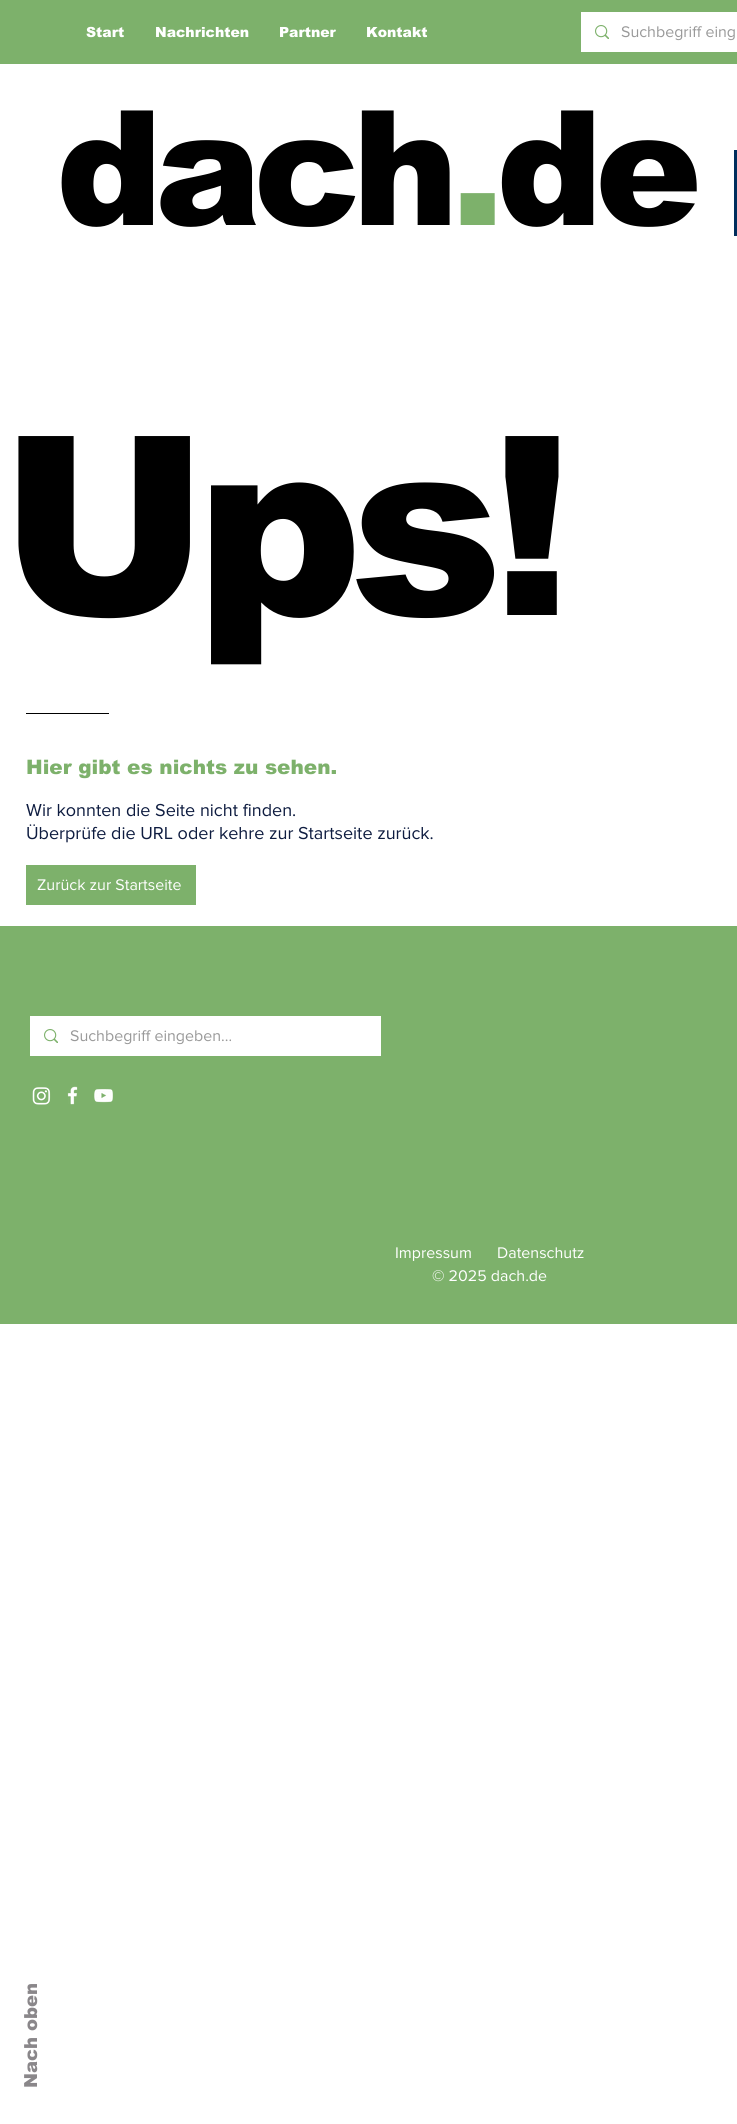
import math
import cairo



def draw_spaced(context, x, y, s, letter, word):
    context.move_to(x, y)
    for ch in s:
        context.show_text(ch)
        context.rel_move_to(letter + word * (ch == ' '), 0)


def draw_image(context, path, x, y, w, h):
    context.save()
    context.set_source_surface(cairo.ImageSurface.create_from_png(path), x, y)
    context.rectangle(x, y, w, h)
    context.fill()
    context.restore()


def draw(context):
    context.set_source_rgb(1, 1, 1)
    context.paint()
    context.set_source_rgb(125 / 255, 177 / 255, 107 / 255)
    context.rectangle(0, 0, 737, 64)
    context.fill()
    context.set_source_rgb(1, 1, 1)
    context.rectangle(581, 12, 156, 40)
    context.fill()
    draw_image(context, "images/1.png", 595, 25, 14, 14)
    context.set_source_rgb(0, 46 / 255, 93 / 255)
    context.rectangle(734, 150, 3, 86)
    context.fill()
    context.set_source_rgb(0, 0, 0)
    context.rectangle(26, 713, 83, 1)
    context.fill()
    context.set_source_rgb(125 / 255, 177 / 255, 107 / 255)
    context.rectangle(26, 865, 170, 40)
    context.fill()
    context.rectangle(0, 926, 737, 398)
    context.fill()
    context.set_source_rgb(1, 1, 1)
    context.rectangle(30, 1016, 351, 40)
    context.fill()
    draw_image(context, "images/1.png", 44, 1029, 14, 14)
    draw_image(context, "images/2.png", 32, 1087, 19, 18)
    draw_image(context, "images/3.png", 67, 1086, 11, 19)
    draw_image(context, "images/4.png", 94, 1089, 19, 14)
    context.select_font_face("arial Black")
    context.set_font_size(14)
    context.move_to(86, 37)
    context.show_text("Start")
    context.move_to(155, 37)
    context.show_text("Nachrichten")
    context.move_to(279, 37)
    context.show_text("Partner")
    context.move_to(366, 37)
    context.show_text("Kontakt")
    context.select_font_face("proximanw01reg")
    context.set_font_size(16)
    context.set_source_rgb(153 / 255, 153 / 255, 153 / 255)
    context.move_to(621, 37)
    context.show_text("Suchbegriff eing")
    context.select_font_face("arial Black")
    context.set_font_size(160)
    context.set_source_rgb(0, 0, 0)
    draw_spaced(context, 56, 225, "dach de", -8, 0)
    context.set_source_rgb(125 / 255, 177 / 255, 107 / 255)
    draw_spaced(context, 451, 225, ".", -8, 0)
    context.set_font_size(250)
    context.set_source_rgb(0, 0, 0)
    draw_spaced(context, 0, 615, "Ups!", -12.5, 0)
    context.set_font_size(20)
    context.set_source_rgb(125 / 255, 177 / 255, 107 / 255)
    context.move_to(26, 774)
    context.show_text("Hier gibt es nichts zu sehen.")
    context.select_font_face("proximanw01reg")
    context.set_font_size(18)
    context.set_source_rgb(14 / 255, 28 / 255, 64 / 255)
    context.move_to(26, 816)
    context.show_text("Wir konnten die Seite nicht finden.")
    context.move_to(26, 839)
    context.show_text("Überprüfe die URL oder kehre zur Startseite zurück.")
    context.set_font_size(16)
    context.set_source_rgb(1, 1, 1)
    context.move_to(37, 890)
    context.show_text("Zurück zur Startseite")
    context.set_source_rgb(153 / 255, 153 / 255, 153 / 255)
    context.move_to(70, 1041)
    context.show_text("Suchbegriff eingeben...")
    context.set_source_rgb(1, 1, 1)
    context.move_to(395, 1258)
    context.show_text("Impressum")
    context.move_to(497, 1258)
    context.show_text("Datenschutz")
    context.move_to(432, 1281)
    context.show_text("© 2025 dach.de")
    context.select_font_face("arial Black")
    context.set_font_size(18)
    context.set_source_rgb(138 / 255, 135 / 255, 138 / 255)
    context.save()
    context.translate(37, 2088)
    context.rotate(-90 * math.pi / 180)
    context.move_to(0, 0)
    context.show_text("Nach oben")
    context.restore()


surface = cairo.ImageSurface(cairo.Format.RGB24, 737, 2124)
context = cairo.Context(surface)
options = cairo.FontOptions()
options.set_hint_metrics(cairo.HintMetrics.OFF)
options.set_hint_style(cairo.HintStyle.NONE)
context.set_font_options(options)
context.set_miter_limit(4)
draw(context)
surface.write_to_png("out.png")
